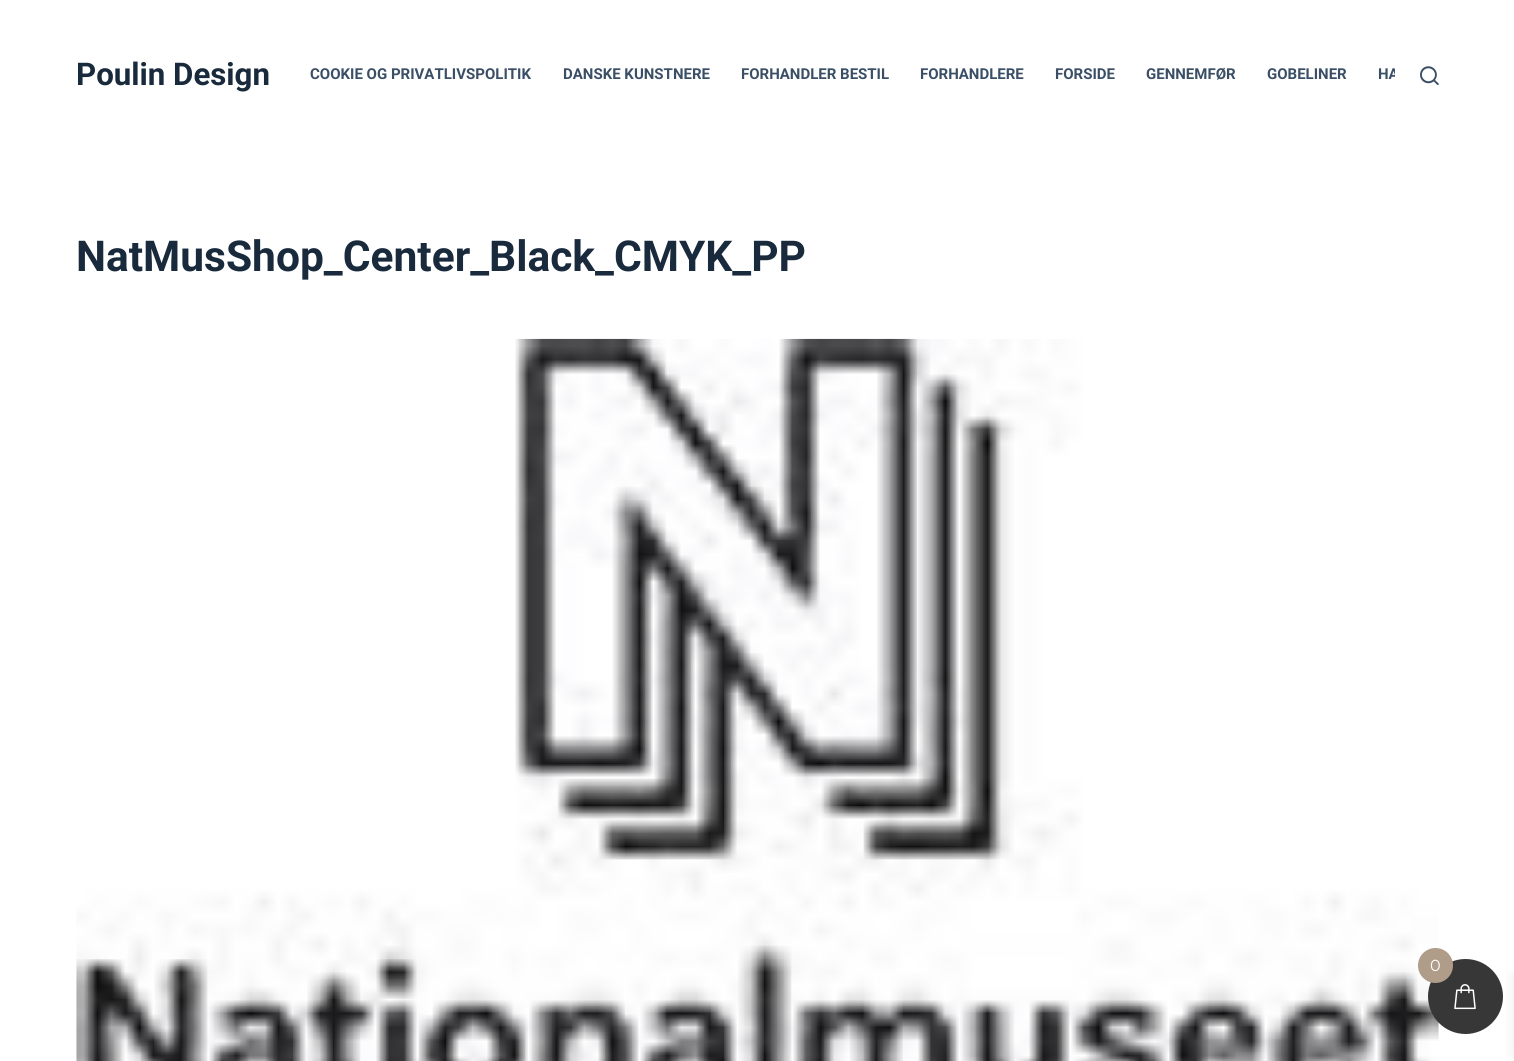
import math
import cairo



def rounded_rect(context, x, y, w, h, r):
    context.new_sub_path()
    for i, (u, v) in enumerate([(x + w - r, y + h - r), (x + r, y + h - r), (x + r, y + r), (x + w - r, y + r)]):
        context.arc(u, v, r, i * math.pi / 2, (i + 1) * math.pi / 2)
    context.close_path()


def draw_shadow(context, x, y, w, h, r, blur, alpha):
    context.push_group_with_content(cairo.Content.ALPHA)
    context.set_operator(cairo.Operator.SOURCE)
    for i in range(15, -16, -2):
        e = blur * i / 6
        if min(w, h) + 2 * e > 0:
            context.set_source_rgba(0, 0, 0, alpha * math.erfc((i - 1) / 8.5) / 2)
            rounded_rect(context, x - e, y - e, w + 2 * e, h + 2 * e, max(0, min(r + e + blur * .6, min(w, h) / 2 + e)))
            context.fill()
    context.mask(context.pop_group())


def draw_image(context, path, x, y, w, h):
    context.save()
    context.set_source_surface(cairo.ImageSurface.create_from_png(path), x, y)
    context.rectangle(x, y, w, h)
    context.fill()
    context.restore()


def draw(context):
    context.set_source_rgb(1, 1, 1)
    context.paint()
    draw_image(context, "images/1.png", 1420, 66, 19, 19)
    draw_image(context, "images/2.png", 76, 338, 1363, 723)
    context.set_source_rgb(0, 0, 0)
    draw_shadow(context, 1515, 976, 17, 79, 0, 6, 0.1)
    context.set_source_rgb(55 / 255, 55 / 255, 55 / 255)
    context.arc(1465.5, 996.5, 37.5, 0, 2 * math.pi)
    context.fill()
    context.set_source_rgb(175 / 255, 156 / 255, 137 / 255)
    context.arc(1435.5, 965.5, 17.5, 0, 2 * math.pi)
    context.fill()
    draw_image(context, "images/3.png", 1454, 984, 22, 26)
    context.select_font_face("Roboto", cairo.FontSlant.NORMAL, cairo.FontWeight.BOLD)
    context.set_font_size(31.25)
    context.set_source_rgb(25 / 255, 42 / 255, 61 / 255)
    context.move_to(76, 85)
    context.show_text("Poulin Design")
    context.set_font_size(15)
    context.set_source_rgb(58 / 255, 79 / 255, 102 / 255)
    context.move_to(310, 79)
    context.show_text("COOKIE OG PRIVATLIVSPOLITIK")
    context.move_to(563, 79)
    context.show_text("DANSKE KUNSTNERE")
    context.move_to(741, 79)
    context.show_text("FORHANDLER BESTIL")
    context.move_to(920, 79)
    context.show_text("FORHANDLERE")
    context.move_to(1055, 79)
    context.show_text("FORSIDE")
    context.move_to(1146, 79)
    context.show_text("GENNEMFØR")
    context.move_to(1267, 79)
    context.show_text("GOBELINER")
    context.save()
    context.rectangle(295, 0, 1100, 150)
    context.clip()
    context.move_to(1378, 79)
    context.show_text("HA")
    context.restore()
    context.set_font_size(42.5)
    context.set_source_rgb(25 / 255, 42 / 255, 61 / 255)
    context.move_to(76, 271)
    context.show_text("NatMusShop_Center_Black_CMYK_PP")
    context.select_font_face("Montserrat")
    context.set_font_size(16)
    context.set_source_rgb(1, 1, 1)
    context.move_to(1430, 971)
    context.show_text("0")


surface = cairo.ImageSurface(cairo.Format.RGB24, 1514, 1061)
context = cairo.Context(surface)
options = cairo.FontOptions()
options.set_hint_metrics(cairo.HintMetrics.OFF)
options.set_hint_style(cairo.HintStyle.NONE)
context.set_font_options(options)
context.set_miter_limit(4)
draw(context)
surface.write_to_png("out.png")
